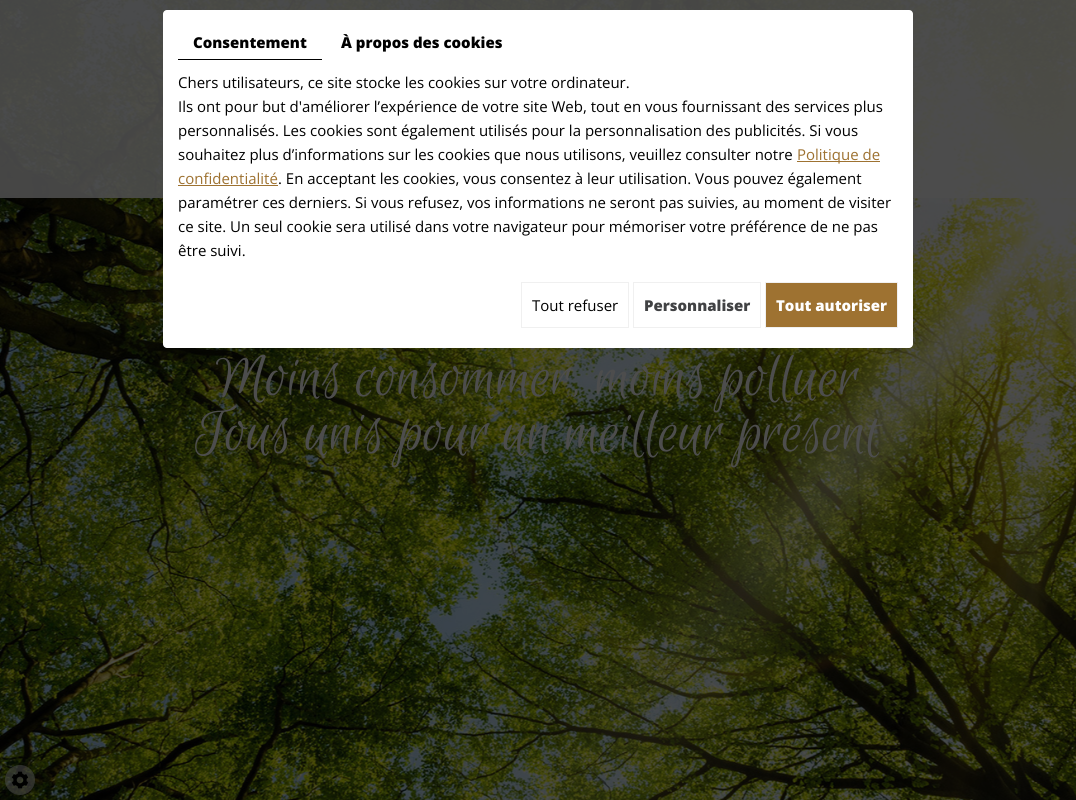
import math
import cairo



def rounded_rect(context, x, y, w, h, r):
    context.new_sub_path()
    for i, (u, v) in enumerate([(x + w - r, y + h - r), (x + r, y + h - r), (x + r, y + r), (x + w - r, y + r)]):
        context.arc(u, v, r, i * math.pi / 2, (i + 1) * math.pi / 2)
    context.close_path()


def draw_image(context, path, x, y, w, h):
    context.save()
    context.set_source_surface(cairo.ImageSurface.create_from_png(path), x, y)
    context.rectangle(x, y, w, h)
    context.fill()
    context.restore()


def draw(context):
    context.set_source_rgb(1, 1, 1)
    context.paint()
    draw_image(context, "images/1.png", 0, 0, 1076, 800)
    context.set_source_rgba(77 / 255, 77 / 255, 77 / 255, 0.9)
    context.rectangle(0, 0, 1076, 198)
    context.fill()
    context.set_source_rgb(1, 1, 1)
    rounded_rect(context, 163, 10, 750, 338, 4)
    context.fill()
    context.set_source_rgb(0, 0, 0)
    context.rectangle(178, 59, 144, 1)
    context.fill()
    context.set_source_rgb(158 / 255, 114 / 255, 49 / 255)
    context.rectangle(797, 161, 83, 1)
    context.fill()
    context.rectangle(178, 185, 100, 1)
    context.fill()
    context.rectangle(521.5, 282.5, 107, 45)
    context.set_source_rgb(240 / 255, 240 / 255, 240 / 255)
    context.set_line_width(1)
    context.stroke()
    context.rectangle(633.5, 282.5, 127, 45)
    context.stroke()
    context.set_source_rgb(158 / 255, 114 / 255, 49 / 255)
    context.rectangle(765.5, 282.5, 132, 45)
    context.fill_preserve()
    context.set_source_rgb(240 / 255, 240 / 255, 240 / 255)
    context.stroke()
    context.set_source_rgba(77 / 255, 77 / 255, 77 / 255, 0.54)
    context.arc(20, 780, 15, 0, 2 * math.pi)
    context.fill()
    draw_image(context, "images/2.png", 11, 771, 18, 18)
    context.select_font_face("Open Sans ExtraBold")
    context.set_font_size(15)
    context.set_source_rgb(0, 0, 0)
    context.move_to(193, 48)
    context.show_text("Consentement")
    context.move_to(341, 48)
    context.show_text("À propos des cookies")
    context.select_font_face("Open Sans")
    context.move_to(178, 88)
    context.show_text("Chers utilisateurs, ce site stocke les cookies sur votre ordinateur.")
    context.move_to(178, 112)
    context.show_text("Ils ont pour but d'améliorer l’expérience de votre site Web, tout en vous fournissant des services plus")
    context.move_to(178, 136)
    context.show_text("personnalisés. Les cookies sont également utilisés pour la personnalisation des publicités. Si vous")
    context.move_to(178, 160)
    context.show_text("souhaitez plus d’informations sur les cookies que nous utilisons, veuillez consulter notre")
    context.set_source_rgb(158 / 255, 114 / 255, 49 / 255)
    context.move_to(797, 160)
    context.show_text("Politique de")
    context.move_to(178, 184)
    context.show_text("confidentialité")
    context.set_source_rgb(0, 0, 0)
    context.move_to(278, 184)
    context.show_text(". En acceptant les cookies, vous consentez à leur utilisation. Vous pouvez également")
    context.move_to(178, 208)
    context.show_text("paramétrer ces derniers. Si vous refusez, vos informations ne seront pas suivies, au moment de visiter")
    context.move_to(178, 232)
    context.show_text("ce site. Un seul cookie sera utilisé dans votre navigateur pour mémoriser votre préférence de ne pas")
    context.move_to(178, 256)
    context.show_text("être suivi.")
    context.move_to(532, 311)
    context.show_text("Tout refuser")
    context.select_font_face("Open Sans ExtraBold")
    context.set_source_rgb(65 / 255, 66 / 255, 68 / 255)
    context.move_to(644, 311)
    context.show_text("Personnaliser")
    context.set_source_rgb(1, 1, 1)
    context.move_to(776, 311)
    context.show_text("Tout autoriser")
    context.select_font_face("Euphoria Script")
    context.set_font_size(65)
    context.set_source_rgb(77 / 255, 77 / 255, 77 / 255)
    context.move_to(216, 395)
    context.show_text("Moins consommer, moins polluer")
    context.move_to(195, 450)
    context.show_text("Tous unis pour un meilleur présent")


surface = cairo.ImageSurface(cairo.Format.RGB24, 1076, 800)
context = cairo.Context(surface)
options = cairo.FontOptions()
options.set_hint_metrics(cairo.HintMetrics.OFF)
options.set_hint_style(cairo.HintStyle.NONE)
context.set_font_options(options)
context.set_miter_limit(4)
draw(context)
surface.write_to_png("out.png")
